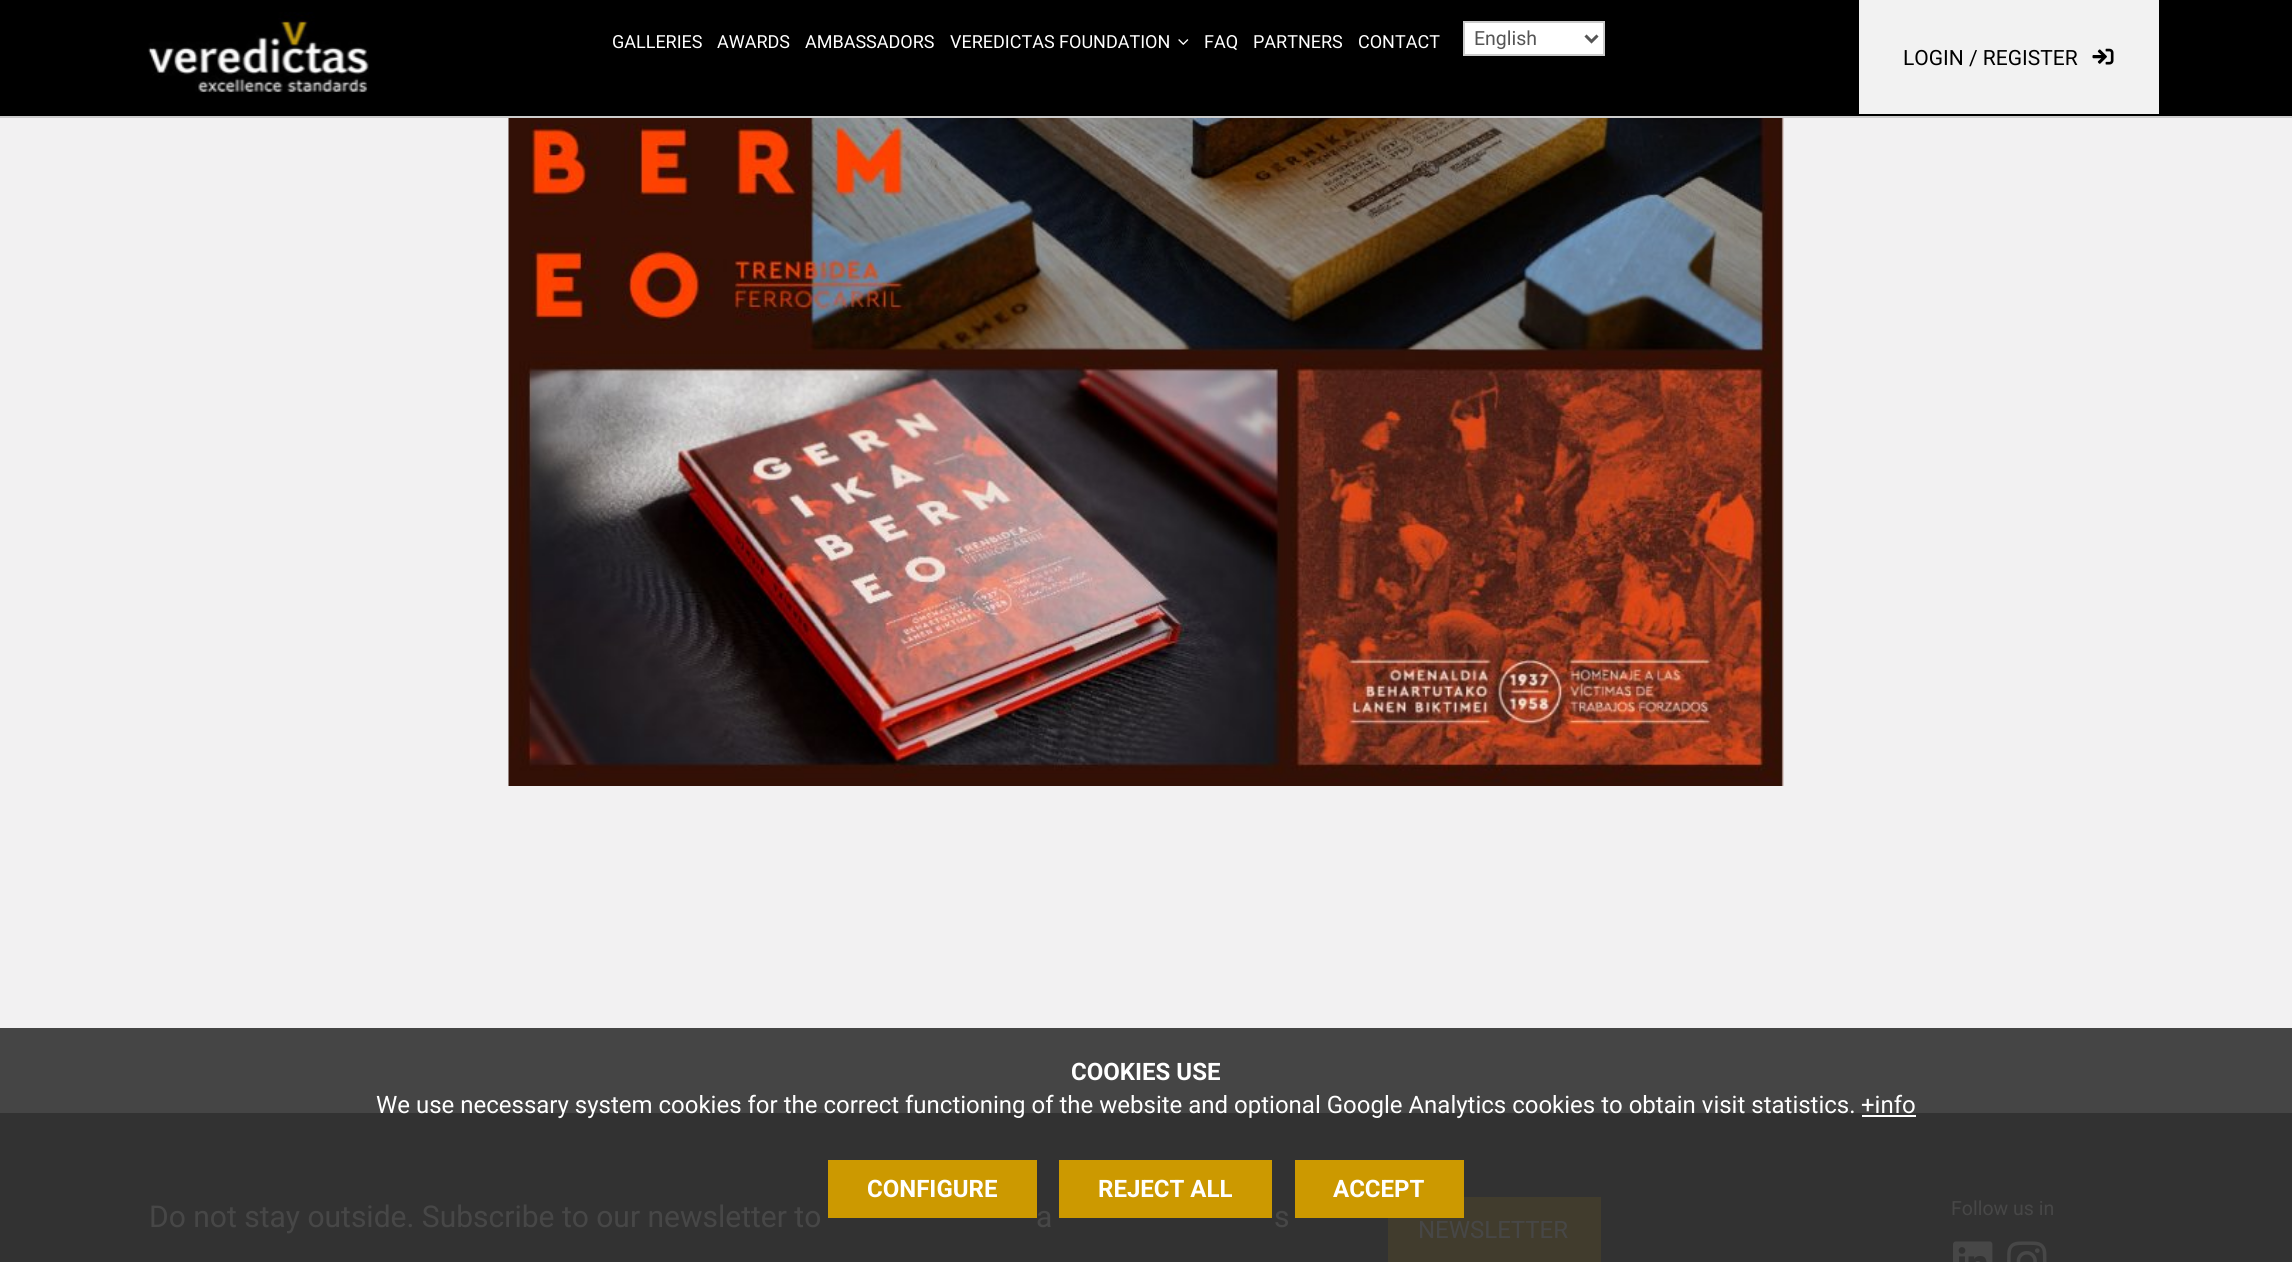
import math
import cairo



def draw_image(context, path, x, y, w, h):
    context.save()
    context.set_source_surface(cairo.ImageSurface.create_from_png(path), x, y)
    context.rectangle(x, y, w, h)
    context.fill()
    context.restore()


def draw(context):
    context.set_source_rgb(242 / 255, 241 / 255, 242 / 255)
    context.paint()
    context.set_source_rgb(0, 0, 0)
    context.rectangle(0, 0, 2292, 116)
    context.fill()
    context.set_source_rgb(204 / 255, 204 / 255, 204 / 255)
    context.rectangle(0, 116, 2292, 2)
    context.fill()
    draw_image(context, "images/1.png", 148, 12, 221, 81)
    draw_image(context, "images/2.png", 1178, 39, 11, 6)
    context.set_source_rgb(1, 1, 1)
    context.rectangle(1464, 22, 140, 33)
    context.fill_preserve()
    context.set_source_rgb(204 / 255, 204 / 255, 204 / 255)
    context.stroke()
    context.new_path()
    context.move_to(1585.5, 35.5)
    context.line_to(1591.5, 41.5)
    context.line_to(1597.5, 35.5)
    context.set_source_rgb(85 / 255, 85 / 255, 85 / 255)
    context.set_line_width(3)
    context.stroke()
    context.set_source_rgb(242 / 255, 242 / 255, 242 / 255)
    context.rectangle(1859, 0, 300, 114)
    context.fill()
    draw_image(context, "images/3.png", 2092, 48, 22, 17)
    context.set_source_rgb(69 / 255, 69 / 255, 69 / 255)
    context.rectangle(0, 1028, 2292, 85)
    context.fill()
    draw_image(context, "images/4.png", 508, 118, 1276, 668)
    context.set_source_rgb(50 / 255, 50 / 255, 50 / 255)
    context.rectangle(0, 1113, 2292, 149)
    context.fill()
    context.set_source_rgb(1, 1, 1)
    context.rectangle(1862, 1115, 54, 2)
    context.fill()
    context.set_source_rgb(204 / 255, 153 / 255, 0)
    context.rectangle(828, 1160, 209, 58)
    context.fill()
    context.rectangle(1059, 1160, 213, 58)
    context.fill()
    context.set_source_rgb(65 / 255, 60 / 255, 45 / 255)
    context.rectangle(1388, 1197, 213, 65)
    context.fill()
    context.set_source_rgb(204 / 255, 153 / 255, 0)
    context.rectangle(1295, 1160, 169, 58)
    context.fill()
    draw_image(context, "images/5.png", 1953, 1241, 40, 21)
    draw_image(context, "images/6.png", 2007, 1241, 40, 21)
    context.select_font_face("Roboto")
    context.set_font_size(18)
    context.set_source_rgb(1, 1, 1)
    context.move_to(612, 48)
    context.show_text("GALLERIES")
    context.move_to(717, 48)
    context.show_text("AWARDS")
    context.move_to(805, 48)
    context.show_text("AMBASSADORS")
    context.move_to(950, 48)
    context.show_text("VEREDICTAS FOUNDATION")
    context.move_to(1204, 48)
    context.show_text("FAQ")
    context.move_to(1253, 48)
    context.show_text("PARTNERS")
    context.move_to(1358, 48)
    context.show_text("CONTACT")
    context.set_font_size(19.5)
    context.set_source_rgb(85 / 255, 85 / 255, 85 / 255)
    context.move_to(1474, 45)
    context.show_text("English")
    context.set_font_size(21)
    context.set_source_rgb(0, 0, 0)
    context.move_to(1903, 65)
    context.show_text("LOGIN / REGISTER")
    context.select_font_face("Roboto", cairo.FontSlant.NORMAL, cairo.FontWeight.BOLD)
    context.set_font_size(24)
    context.set_source_rgb(1, 1, 1)
    context.move_to(1071, 1080)
    context.show_text("COOKIES USE")
    context.select_font_face("Roboto")
    context.move_to(376, 1113)
    context.show_text("We use necessary system cookies for the correct functioning of the website and optional Google Analytics cookies to obtain visit statistics.")
    context.move_to(1861, 1113)
    context.show_text("+info")
    context.select_font_face("Roboto", cairo.FontSlant.NORMAL, cairo.FontWeight.BOLD)
    context.move_to(867, 1197)
    context.show_text("CONFIGURE")
    context.move_to(1098, 1197)
    context.show_text("REJECT ALL")
    context.move_to(1333, 1197)
    context.show_text("ACCEPT")
    context.select_font_face("Roboto")
    context.set_font_size(30)
    context.set_source_rgb(71 / 255, 71 / 255, 71 / 255)
    context.move_to(149, 1227)
    context.show_text("Do not stay outside. Subscribe to our newsletter to")
    context.move_to(1036, 1227)
    context.show_text("a")
    context.move_to(1274, 1227)
    context.show_text("s")
    context.set_font_size(24)
    context.move_to(1418, 1238)
    context.show_text("NEWSLETTER")
    context.set_font_size(19.5)
    context.move_to(1951, 1215)
    context.show_text("Follow us in")


surface = cairo.ImageSurface(cairo.Format.RGB24, 2292, 1262)
context = cairo.Context(surface)
options = cairo.FontOptions()
options.set_hint_metrics(cairo.HintMetrics.OFF)
options.set_hint_style(cairo.HintStyle.NONE)
context.set_font_options(options)
context.set_miter_limit(4)
draw(context)
surface.write_to_png("out.png")
